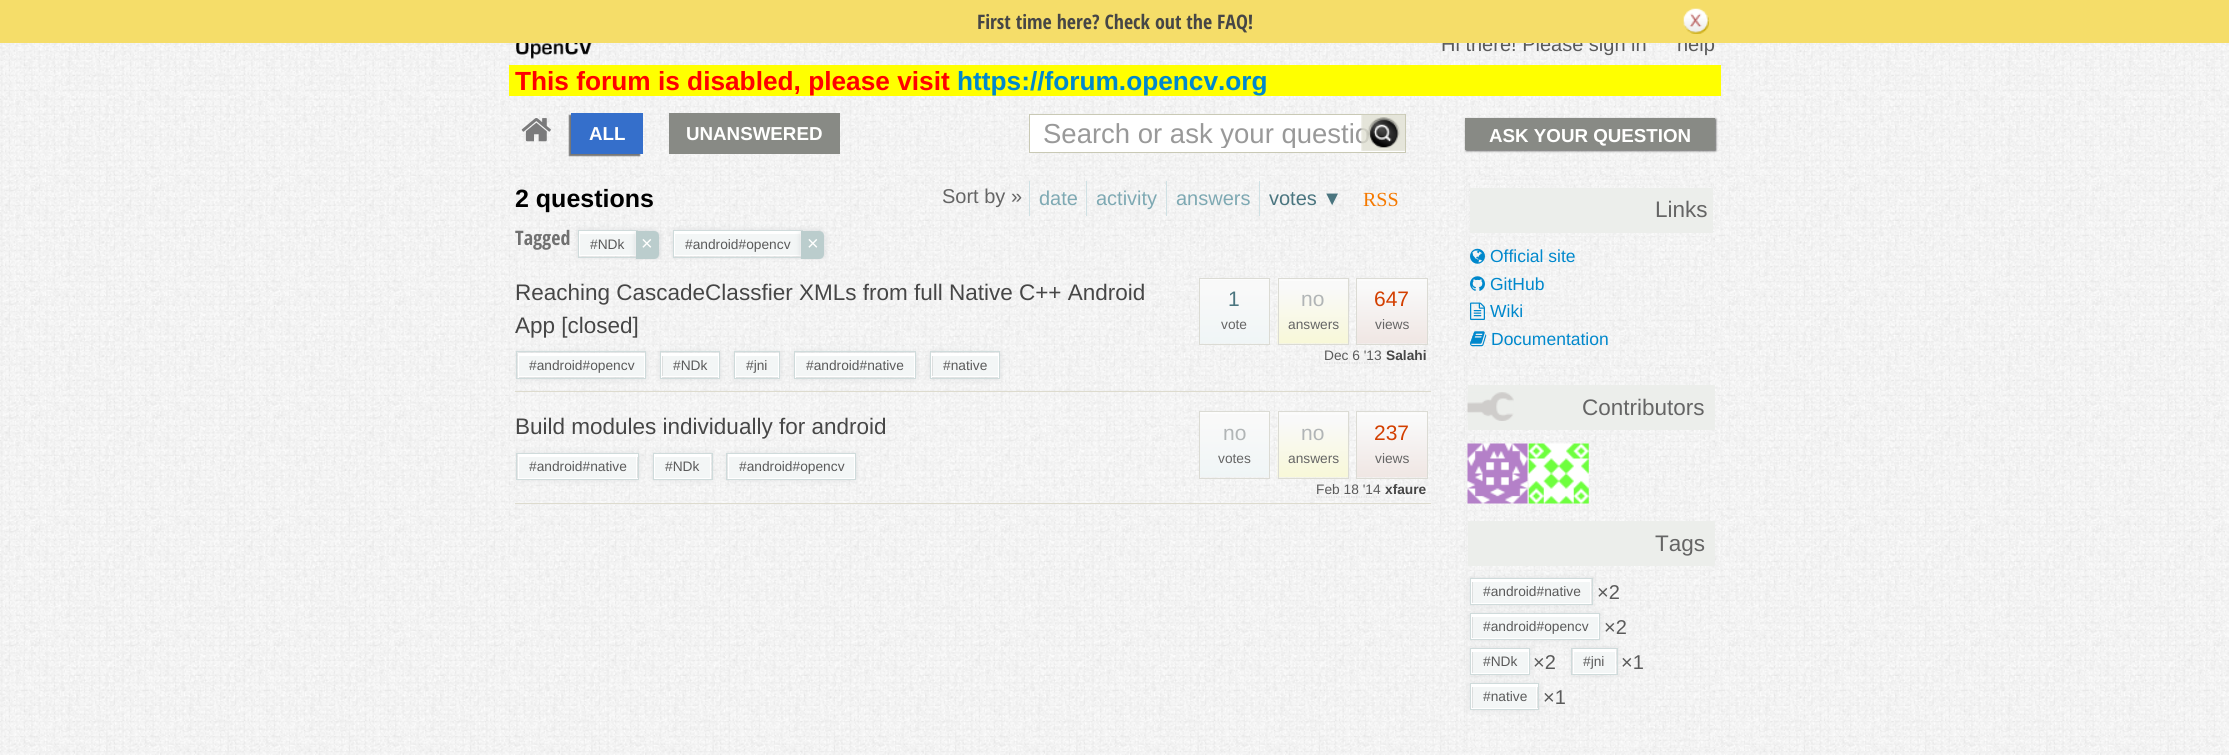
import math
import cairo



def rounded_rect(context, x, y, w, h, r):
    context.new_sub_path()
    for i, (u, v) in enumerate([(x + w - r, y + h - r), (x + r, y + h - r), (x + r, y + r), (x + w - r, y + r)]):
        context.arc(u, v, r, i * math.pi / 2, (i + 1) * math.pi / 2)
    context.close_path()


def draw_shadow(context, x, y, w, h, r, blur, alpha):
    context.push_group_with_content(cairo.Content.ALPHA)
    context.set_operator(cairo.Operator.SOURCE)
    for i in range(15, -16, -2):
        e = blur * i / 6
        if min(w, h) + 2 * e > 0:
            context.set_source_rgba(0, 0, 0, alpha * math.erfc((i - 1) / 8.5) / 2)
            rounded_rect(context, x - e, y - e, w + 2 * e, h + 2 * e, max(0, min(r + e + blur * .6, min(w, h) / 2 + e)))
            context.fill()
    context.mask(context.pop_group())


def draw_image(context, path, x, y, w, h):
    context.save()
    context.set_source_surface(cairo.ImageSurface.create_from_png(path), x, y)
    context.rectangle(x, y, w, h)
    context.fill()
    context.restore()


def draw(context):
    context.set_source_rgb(1, 1, 1)
    context.paint()
    draw_image(context, "images/1.png", 0, 96, 2229, 659)
    draw_image(context, "images/3.png", 0, 43, 2229, 53)
    draw_image(context, "images/4.png", 516, 43, 76, 16)
    context.set_source_rgb(1, 1, 0)
    context.rectangle(509, 65, 1212, 31)
    context.fill()
    draw_image(context, "images/5.png", 521, 118, 30, 24)
    context.set_source_rgb(119 / 255, 119 / 255, 119 / 255)
    draw_shadow(context, 569, 115, 71, 41, 0, 0.5, 1)
    context.set_source_rgb(53 / 255, 111 / 255, 203 / 255)
    context.rectangle(571, 113, 72, 41)
    context.fill()
    context.set_source_rgb(136 / 255, 138 / 255, 133 / 255)
    context.rectangle(669, 113, 171, 41)
    context.fill()
    context.set_source_rgb(1, 1, 1)
    context.rectangle(1029.5, 114.5, 376, 38)
    context.fill_preserve()
    context.set_source_rgb(201 / 255, 201 / 255, 181 / 255)
    context.set_line_width(1)
    context.stroke()
    context.set_source_rgb(99 / 255, 99 / 255, 99 / 255)
    draw_shadow(context, 1466, 119, 250, 32, 0, 1, 1)
    context.set_source_rgb(136 / 255, 138 / 255, 133 / 255)
    context.rectangle(1465, 118, 250, 32)
    context.fill()
    context.set_source_rgb(208 / 255, 225 / 255, 228 / 255)
    context.rectangle(1029, 181, 1, 35)
    context.fill()
    context.rectangle(1086, 181, 1, 35)
    context.fill()
    context.rectangle(1166, 181, 1, 35)
    context.fill()
    context.rectangle(1259, 181, 1, 35)
    context.fill()
    context.set_source_rgb(211 / 255, 214 / 255, 215 / 255)
    draw_shadow(context, 579, 231, 57, 25, 0, 3, 1)
    context.set_source_rgb(243 / 255, 246 / 255, 246 / 255)
    context.rectangle(580, 234, 55, 21)
    context.fill()
    context.set_source_rgb(1, 1, 1)
    context.rectangle(579, 231, 57, 3)
    context.fill()
    context.rectangle(635, 231, 1, 25)
    context.fill()
    context.rectangle(579, 255, 57, 1)
    context.fill()
    context.rectangle(579, 231, 1, 25)
    context.fill()
    context.rectangle(578.5, 230.5, 59, 27)
    context.set_source_rgb(207 / 255, 219 / 255, 219 / 255)
    context.stroke()
    context.set_source_rgb(211 / 255, 214 / 255, 215 / 255)
    draw_shadow(context, 636, 231, 23, 28, 5, 3, 1)
    context.set_source_rgb(187 / 255, 205 / 255, 205 / 255)
    context.new_path()
    context.move_to(636, 231)
    context.line_to(654, 231)
    context.curve_to(657, 231, 659, 233, 659, 236)
    context.line_to(659, 254)
    context.curve_to(659, 257, 657, 259, 654, 259)
    context.line_to(636, 259)
    context.close_path()
    context.fill()
    context.set_source_rgb(211 / 255, 214 / 255, 215 / 255)
    draw_shadow(context, 674, 231, 127, 25, 0, 3, 1)
    context.set_source_rgb(243 / 255, 246 / 255, 246 / 255)
    context.rectangle(675, 234, 125, 21)
    context.fill()
    context.set_source_rgb(1, 1, 1)
    context.rectangle(674, 231, 127, 3)
    context.fill()
    context.rectangle(800, 231, 1, 25)
    context.fill()
    context.rectangle(674, 255, 127, 1)
    context.fill()
    context.rectangle(674, 231, 1, 25)
    context.fill()
    context.rectangle(673.5, 230.5, 129, 27)
    context.set_source_rgb(207 / 255, 219 / 255, 219 / 255)
    context.stroke()
    context.set_source_rgb(211 / 255, 214 / 255, 215 / 255)
    draw_shadow(context, 801, 231, 23, 28, 5, 3, 1)
    context.set_source_rgb(187 / 255, 205 / 255, 205 / 255)
    context.new_path()
    context.move_to(801, 231)
    context.line_to(819, 231)
    context.curve_to(822, 231, 824, 233, 824, 236)
    context.line_to(824, 254)
    context.curve_to(824, 257, 822, 259, 819, 259)
    context.line_to(801, 259)
    context.close_path()
    context.fill()
    draw_image(context, "images/7.png", 515, 259, 913, 246)
    draw_image(context, "images/8.png", 643, 259, 788, 132)
    context.set_source_rgb(221 / 255, 219 / 255, 206 / 255)
    context.rectangle(515, 391, 916, 1)
    context.fill()
    draw_image(context, "images/9.png", 1198, 278, 71, 66)
    context.rectangle(1199.5, 278.5, 70, 66)
    context.set_source_rgb(219 / 255, 219 / 255, 212 / 255)
    context.stroke()
    draw_image(context, "images/10.png", 1277, 278, 71, 66)
    context.rectangle(1278.5, 278.5, 70, 66)
    context.stroke()
    draw_image(context, "images/11.png", 1357, 279, 70, 65)
    context.rectangle(1356.5, 278.5, 71, 66)
    context.stroke()
    context.new_path()
    context.move_to(1324, 363)
    context.line_to(1381, 363)
    context.set_source_rgb(221 / 255, 221 / 255, 221 / 255)
    context.set_line_width(1.2)
    context.set_dash([1.25, 1.25])
    context.stroke()
    context.save()
    context.rectangle(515, 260, 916, 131)
    context.clip()
    context.set_source_rgb(211 / 255, 214 / 255, 215 / 255)
    draw_shadow(context, 518, 353, 127, 25, 0, 3, 1)
    context.restore()
    context.set_source_rgb(243 / 255, 246 / 255, 246 / 255)
    context.rectangle(519, 356, 125, 20)
    context.fill()
    context.set_source_rgb(1, 1, 1)
    context.rectangle(518, 353, 127, 3)
    context.fill()
    context.rectangle(644, 353, 1, 25)
    context.fill()
    context.rectangle(518, 376, 127, 1)
    context.fill()
    context.rectangle(518, 353, 1, 25)
    context.fill()
    context.rectangle(516.5, 351.5, 129, 27)
    context.set_source_rgb(207 / 255, 219 / 255, 219 / 255)
    context.set_line_width(1)
    context.set_dash([])
    context.stroke()
    context.set_source_rgb(211 / 255, 214 / 255, 215 / 255)
    draw_shadow(context, 661, 353, 58, 25, 0, 3, 1)
    context.set_source_rgb(243 / 255, 246 / 255, 246 / 255)
    context.rectangle(663, 356, 55, 20)
    context.fill()
    context.set_source_rgb(1, 1, 1)
    context.rectangle(661, 353, 58, 3)
    context.fill()
    context.rectangle(718, 353, 1, 25)
    context.fill()
    context.rectangle(661, 376, 58, 1)
    context.fill()
    context.rectangle(661, 353, 1, 25)
    context.fill()
    context.rectangle(660.5, 351.5, 59, 27)
    context.set_source_rgb(207 / 255, 219 / 255, 219 / 255)
    context.stroke()
    context.set_source_rgb(211 / 255, 214 / 255, 215 / 255)
    draw_shadow(context, 735, 353, 44, 25, 0, 3, 1)
    context.set_source_rgb(243 / 255, 246 / 255, 246 / 255)
    context.rectangle(736, 356, 42, 20)
    context.fill()
    context.set_source_rgb(1, 1, 1)
    context.rectangle(735, 353, 44, 3)
    context.fill()
    context.rectangle(778, 353, 1, 25)
    context.fill()
    context.rectangle(735, 376, 44, 1)
    context.fill()
    context.rectangle(735, 353, 1, 25)
    context.fill()
    context.rectangle(734.5, 351.5, 45, 27)
    context.set_source_rgb(207 / 255, 219 / 255, 219 / 255)
    context.stroke()
    context.set_source_rgb(211 / 255, 214 / 255, 215 / 255)
    draw_shadow(context, 795, 353, 120, 25, 0, 3, 1)
    context.set_source_rgb(243 / 255, 246 / 255, 246 / 255)
    context.rectangle(796, 356, 118, 20)
    context.fill()
    context.set_source_rgb(1, 1, 1)
    context.rectangle(795, 353, 120, 3)
    context.fill()
    context.rectangle(914, 353, 1, 25)
    context.fill()
    context.rectangle(795, 376, 120, 1)
    context.fill()
    context.rectangle(795, 353, 1, 25)
    context.fill()
    context.rectangle(794.5, 351.5, 121, 27)
    context.set_source_rgb(207 / 255, 219 / 255, 219 / 255)
    context.stroke()
    context.set_source_rgb(211 / 255, 214 / 255, 215 / 255)
    draw_shadow(context, 931, 353, 68, 25, 0, 3, 1)
    context.set_source_rgb(243 / 255, 246 / 255, 246 / 255)
    context.rectangle(933, 356, 65, 20)
    context.fill()
    context.set_source_rgb(1, 1, 1)
    context.rectangle(931, 353, 68, 3)
    context.fill()
    context.rectangle(998, 353, 1, 25)
    context.fill()
    context.rectangle(931, 376, 68, 1)
    context.fill()
    context.rectangle(931, 353, 1, 25)
    context.fill()
    context.rectangle(930.5, 351.5, 69, 27)
    context.set_source_rgb(207 / 255, 219 / 255, 219 / 255)
    context.stroke()
    draw_image(context, "images/12.png", 515, 393, 916, 110)
    context.set_source_rgb(221 / 255, 219 / 255, 206 / 255)
    context.rectangle(515, 503, 916, 1)
    context.fill()
    draw_image(context, "images/13.png", 1200, 412, 69, 65)
    context.rectangle(1199.5, 411.5, 70, 67)
    context.set_source_rgb(219 / 255, 219 / 255, 212 / 255)
    context.stroke()
    draw_image(context, "images/14.png", 1277, 412, 71, 66)
    context.rectangle(1278.5, 411.5, 70, 67)
    context.stroke()
    draw_image(context, "images/15.png", 1357, 412, 70, 66)
    context.rectangle(1356.5, 411.5, 71, 67)
    context.stroke()
    context.new_path()
    context.move_to(1316, 497)
    context.line_to(1381, 497)
    context.set_source_rgb(221 / 255, 221 / 255, 221 / 255)
    context.set_line_width(1.2)
    context.set_dash([1.25, 1.25])
    context.stroke()
    context.save()
    context.rectangle(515, 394, 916, 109)
    context.clip()
    context.set_source_rgb(211 / 255, 214 / 255, 215 / 255)
    draw_shadow(context, 518, 454, 120, 25, 0, 3, 1)
    context.restore()
    context.set_source_rgb(243 / 255, 246 / 255, 246 / 255)
    context.rectangle(519, 457, 117, 21)
    context.fill()
    context.set_source_rgb(1, 1, 1)
    context.rectangle(518, 454, 120, 3)
    context.fill()
    context.rectangle(636, 454, 1, 25)
    context.fill()
    context.rectangle(518, 478, 120, 1)
    context.fill()
    context.rectangle(518, 454, 1, 25)
    context.fill()
    context.rectangle(516.5, 453.5, 122, 26)
    context.set_source_rgb(207 / 255, 219 / 255, 219 / 255)
    context.set_line_width(1)
    context.set_dash([])
    context.stroke()
    context.set_source_rgb(211 / 255, 214 / 255, 215 / 255)
    draw_shadow(context, 654, 454, 57, 25, 0, 3, 1)
    context.set_source_rgb(243 / 255, 246 / 255, 246 / 255)
    context.rectangle(655, 457, 55, 21)
    context.fill()
    context.set_source_rgb(1, 1, 1)
    context.rectangle(654, 454, 57, 3)
    context.fill()
    context.rectangle(710, 454, 1, 25)
    context.fill()
    context.rectangle(654, 478, 57, 1)
    context.fill()
    context.rectangle(654, 454, 1, 25)
    context.fill()
    context.rectangle(653.5, 453.5, 59, 26)
    context.set_source_rgb(207 / 255, 219 / 255, 219 / 255)
    context.stroke()
    context.set_source_rgb(211 / 255, 214 / 255, 215 / 255)
    draw_shadow(context, 728, 454, 127, 25, 0, 3, 1)
    context.set_source_rgb(243 / 255, 246 / 255, 246 / 255)
    context.rectangle(729, 457, 125, 21)
    context.fill()
    context.set_source_rgb(1, 1, 1)
    context.rectangle(728, 454, 127, 3)
    context.fill()
    context.rectangle(854, 454, 1, 25)
    context.fill()
    context.rectangle(728, 478, 127, 1)
    context.fill()
    context.rectangle(728, 454, 1, 25)
    context.fill()
    context.rectangle(726.5, 453.5, 129, 26)
    context.set_source_rgb(207 / 255, 219 / 255, 219 / 255)
    context.stroke()
    draw_image(context, "images/16.png", 1465, 177, 250, 203)
    draw_image(context, "images/17.png", 1467, 182, 246, 185)
    context.set_source_rgb(236 / 255, 238 / 255, 235 / 255)
    context.rectangle(1470, 188, 243, 45)
    context.fill()
    draw_image(context, "images/18.png", 1470, 248, 15, 16)
    draw_image(context, "images/19.png", 1470, 276, 15, 15)
    draw_image(context, "images/20.png", 1470, 302, 15, 18)
    draw_image(context, "images/21.png", 1470, 331, 17, 16)
    draw_image(context, "images/22.png", 1465, 380, 250, 136)
    context.rectangle(1468, 385, 247, 45)
    context.fill()
    draw_image(context, "images/23.png", 1467, 392, 47, 29)
    draw_image(context, "images/24.png", 1467, 443, 61, 61)
    draw_image(context, "images/25.png", 1528, 443, 61, 61)
    draw_image(context, "images/26.png", 1465, 516, 250, 215)
    context.rectangle(1468, 521, 247, 45)
    context.fill()
    context.set_source_rgb(211 / 255, 214 / 255, 215 / 255)
    draw_shadow(context, 1471, 579, 120, 25, 0, 3, 1)
    context.set_source_rgb(243 / 255, 246 / 255, 246 / 255)
    context.rectangle(1473, 582, 117, 21)
    context.fill()
    context.set_source_rgb(1, 1, 1)
    context.rectangle(1471, 579, 120, 3)
    context.fill()
    context.rectangle(1590, 579, 1, 25)
    context.fill()
    context.rectangle(1471, 603, 120, 1)
    context.fill()
    context.rectangle(1471, 579, 1, 25)
    context.fill()
    context.rectangle(1470.5, 578.5, 122, 26)
    context.set_source_rgb(207 / 255, 219 / 255, 219 / 255)
    context.stroke()
    context.set_source_rgb(211 / 255, 214 / 255, 215 / 255)
    draw_shadow(context, 1471, 614, 128, 25, 0, 3, 1)
    context.set_source_rgb(243 / 255, 246 / 255, 246 / 255)
    context.rectangle(1473, 617, 125, 21)
    context.fill()
    context.set_source_rgb(1, 1, 1)
    context.rectangle(1471, 614, 128, 3)
    context.fill()
    context.rectangle(1598, 614, 1, 25)
    context.fill()
    context.rectangle(1471, 638, 128, 1)
    context.fill()
    context.rectangle(1471, 614, 1, 25)
    context.fill()
    context.rectangle(1470.5, 613.5, 129, 26)
    context.set_source_rgb(207 / 255, 219 / 255, 219 / 255)
    context.stroke()
    context.set_source_rgb(211 / 255, 214 / 255, 215 / 255)
    draw_shadow(context, 1471, 649, 58, 25, 0, 3, 1)
    context.set_source_rgb(243 / 255, 246 / 255, 246 / 255)
    context.rectangle(1473, 652, 55, 21)
    context.fill()
    context.set_source_rgb(1, 1, 1)
    context.rectangle(1471, 649, 58, 3)
    context.fill()
    context.rectangle(1528, 649, 1, 25)
    context.fill()
    context.rectangle(1471, 673, 58, 1)
    context.fill()
    context.rectangle(1471, 649, 1, 25)
    context.fill()
    context.rectangle(1470.5, 648.5, 59, 26)
    context.set_source_rgb(207 / 255, 219 / 255, 219 / 255)
    context.stroke()
    context.set_source_rgb(211 / 255, 214 / 255, 215 / 255)
    draw_shadow(context, 1573, 649, 43, 25, 0, 3, 1)
    context.set_source_rgb(243 / 255, 246 / 255, 246 / 255)
    context.rectangle(1574, 652, 41, 21)
    context.fill()
    context.set_source_rgb(1, 1, 1)
    context.rectangle(1573, 649, 43, 3)
    context.fill()
    context.rectangle(1615, 649, 1, 25)
    context.fill()
    context.rectangle(1573, 673, 43, 1)
    context.fill()
    context.rectangle(1573, 649, 1, 25)
    context.fill()
    context.rectangle(1571.5, 648.5, 46, 26)
    context.set_source_rgb(207 / 255, 219 / 255, 219 / 255)
    context.stroke()
    context.set_source_rgb(211 / 255, 214 / 255, 215 / 255)
    draw_shadow(context, 1471, 684, 67, 25, 0, 3, 1)
    context.set_source_rgb(243 / 255, 246 / 255, 246 / 255)
    context.rectangle(1473, 687, 63, 21)
    context.fill()
    context.set_source_rgb(1, 1, 1)
    context.rectangle(1471, 684, 67, 3)
    context.fill()
    context.rectangle(1536, 684, 1, 25)
    context.fill()
    context.rectangle(1471, 708, 67, 1)
    context.fill()
    context.rectangle(1471, 684, 1, 25)
    context.fill()
    context.rectangle(1470.5, 683.5, 68, 26)
    context.set_source_rgb(207 / 255, 219 / 255, 219 / 255)
    context.stroke()
    draw_image(context, "images/27.png", 1465, 731, 250, 18)
    context.select_font_face("Liberation Sans")
    context.set_font_size(20)
    context.set_source_rgb(90 / 255, 90 / 255, 90 / 255)
    context.move_to(1441, 51)
    context.show_text("Hi there! Please sign in")
    context.move_to(1677, 51)
    context.show_text("help")
    context.set_source_rgb(245 / 255, 221 / 255, 105 / 255)
    context.rectangle(0, 0, 2229, 43)
    context.fill()
    draw_image(context, "images/2.png", 1683, 8, 26, 26)
    context.select_font_face("Open Sans Condensed", cairo.FontSlant.NORMAL, cairo.FontWeight.BOLD)
    context.set_source_rgb(70 / 255, 70 / 255, 70 / 255)
    context.move_to(977, 29)
    context.show_text("First time here? Check out the FAQ!")
    context.select_font_face("Liberation Sans", cairo.FontSlant.NORMAL, cairo.FontWeight.BOLD)
    context.set_font_size(26.25)
    context.set_source_rgb(1, 0, 0)
    context.move_to(515, 90)
    context.show_text("This forum is disabled, please visit")
    context.set_source_rgb(0, 136 / 255, 204 / 255)
    context.move_to(957, 90)
    context.show_text("https://forum.opencv.org")
    context.set_font_size(18.75)
    context.set_source_rgb(1, 1, 254 / 255)
    context.move_to(589, 140)
    context.show_text("ALL")
    context.move_to(686, 140)
    context.show_text("UNANSWERED")
    context.save()
    context.rectangle(1043, 119, 343, 29)
    context.clip()
    context.select_font_face("Liberation Sans")
    context.set_font_size(27.5)
    context.set_source_rgb(153 / 255, 153 / 255, 153 / 255)
    context.move_to(1043, 143)
    context.show_text("Search or ask your questio")
    context.restore()
    draw_image(context, "images/6.png", 1361, 114, 44, 37)
    context.move_to(1489, 142)
    context.show_text("ASK YOUR QUESTION")
    context.set_font_size(25)
    context.set_source_rgb(0, 0, 0)
    context.move_to(515, 207)
    context.show_text("2 questions")
    context.select_font_face("Liberation Sans")
    context.set_font_size(20)
    context.set_source_rgb(101 / 255, 101 / 255, 101 / 255)
    context.move_to(942, 203)
    context.show_text("Sort by »")
    context.set_source_rgb(126 / 255, 169 / 255, 179 / 255)
    context.move_to(1039, 205)
    context.show_text("date")
    context.move_to(1096, 205)
    context.show_text("activity")
    context.move_to(1176, 205)
    context.show_text("answers")
    context.set_source_rgb(74 / 255, 117 / 255, 127 / 255)
    context.move_to(1269, 205)
    context.show_text("votes ▼")
    context.select_font_face("Liberation Serif")
    context.set_source_rgb(245 / 255, 121 / 255, 0)
    context.move_to(1363, 206)
    context.show_text("RSS")
    context.select_font_face("Open Sans Condensed", cairo.FontSlant.NORMAL, cairo.FontWeight.BOLD)
    context.set_source_rgb(112 / 255, 112 / 255, 112 / 255)
    context.move_to(515, 245)
    context.show_text("Tagged")
    context.select_font_face("Liberation Sans")
    context.set_font_size(13.75)
    context.set_source_rgb(90 / 255, 90 / 255, 90 / 255)
    context.move_to(590, 249)
    context.show_text("#NDk")
    context.set_font_size(20)
    context.set_source_rgb(1, 1, 254 / 255)
    context.move_to(641, 250)
    context.show_text("×")
    context.set_font_size(13.75)
    context.set_source_rgb(90 / 255, 90 / 255, 90 / 255)
    context.move_to(685, 249)
    context.show_text("#android#opencv")
    context.set_font_size(20)
    context.set_source_rgb(1, 1, 254 / 255)
    context.move_to(807, 250)
    context.show_text("×")
    context.set_font_size(22.5)
    context.set_source_rgb(70 / 255, 70 / 255, 70 / 255)
    context.move_to(515, 300)
    context.show_text("Reaching CascadeClassfier XMLs from full Native C++ Android")
    context.move_to(515, 333)
    context.show_text("App [closed]")
    context.set_font_size(21)
    context.set_source_rgb(74 / 255, 117 / 255, 127 / 255)
    context.move_to(1228, 306)
    context.show_text("1")
    context.set_font_size(13.75)
    context.set_source_rgb(101 / 255, 101 / 255, 101 / 255)
    context.move_to(1221, 329)
    context.show_text("vote")
    context.set_font_size(21)
    context.set_source_rgb(177 / 255, 181 / 255, 182 / 255)
    context.move_to(1301, 306)
    context.show_text("no")
    context.set_font_size(13.75)
    context.set_source_rgb(101 / 255, 101 / 255, 101 / 255)
    context.move_to(1288, 329)
    context.show_text("answers")
    context.set_font_size(21)
    context.set_source_rgb(211 / 255, 63 / 255, 0)
    context.move_to(1374, 306)
    context.show_text("647")
    context.set_font_size(13.75)
    context.set_source_rgb(101 / 255, 101 / 255, 101 / 255)
    context.move_to(1375, 329)
    context.show_text("views")
    context.set_source_rgb(90 / 255, 90 / 255, 90 / 255)
    context.move_to(1324, 360)
    context.show_text("Dec 6 '13")
    context.select_font_face("Liberation Sans", cairo.FontSlant.NORMAL, cairo.FontWeight.BOLD)
    context.set_source_rgb(70 / 255, 70 / 255, 70 / 255)
    context.move_to(1386, 360)
    context.show_text("Salahi")
    context.select_font_face("Liberation Sans")
    context.set_source_rgb(90 / 255, 90 / 255, 90 / 255)
    context.move_to(529, 370)
    context.show_text("#android#opencv")
    context.move_to(673, 370)
    context.show_text("#NDk")
    context.move_to(746, 370)
    context.show_text("#jni")
    context.move_to(806, 370)
    context.show_text("#android#native")
    context.move_to(943, 370)
    context.show_text("#native")
    context.set_font_size(22.5)
    context.set_source_rgb(70 / 255, 70 / 255, 70 / 255)
    context.move_to(515, 434)
    context.show_text("Build modules individually for android")
    context.set_font_size(21)
    context.set_source_rgb(177 / 255, 181 / 255, 182 / 255)
    context.move_to(1223, 440)
    context.show_text("no")
    context.set_font_size(13.75)
    context.set_source_rgb(101 / 255, 101 / 255, 101 / 255)
    context.move_to(1218, 463)
    context.show_text("votes")
    context.set_font_size(21)
    context.set_source_rgb(177 / 255, 181 / 255, 182 / 255)
    context.move_to(1301, 440)
    context.show_text("no")
    context.set_font_size(13.75)
    context.set_source_rgb(101 / 255, 101 / 255, 101 / 255)
    context.move_to(1288, 463)
    context.show_text("answers")
    context.set_font_size(21)
    context.set_source_rgb(211 / 255, 63 / 255, 0)
    context.move_to(1374, 440)
    context.show_text("237")
    context.set_font_size(13.75)
    context.set_source_rgb(101 / 255, 101 / 255, 101 / 255)
    context.move_to(1375, 463)
    context.show_text("views")
    context.set_source_rgb(90 / 255, 90 / 255, 90 / 255)
    context.move_to(1316, 494)
    context.show_text("Feb 18 '14")
    context.select_font_face("Liberation Sans", cairo.FontSlant.NORMAL, cairo.FontWeight.BOLD)
    context.set_source_rgb(70 / 255, 70 / 255, 70 / 255)
    context.move_to(1385, 494)
    context.show_text("xfaure")
    context.select_font_face("Liberation Sans")
    context.set_source_rgb(90 / 255, 90 / 255, 90 / 255)
    context.move_to(529, 471)
    context.show_text("#android#native")
    context.move_to(665, 471)
    context.show_text("#NDk")
    context.move_to(739, 471)
    context.show_text("#android#opencv")
    context.set_font_size(22.5)
    context.set_source_rgb(101 / 255, 101 / 255, 101 / 255)
    context.move_to(1655, 217)
    context.show_text("Links")
    context.set_font_size(17.5)
    context.set_source_rgb(0, 136 / 255, 204 / 255)
    context.move_to(1490, 262)
    context.show_text("Official site")
    context.move_to(1490, 290)
    context.show_text("GitHub")
    context.move_to(1490, 317)
    context.show_text("Wiki")
    context.move_to(1491, 345)
    context.show_text("Documentation")
    context.set_font_size(22.5)
    context.set_source_rgb(101 / 255, 101 / 255, 101 / 255)
    context.move_to(1582, 415)
    context.show_text("Contributors")
    context.move_to(1655, 551)
    context.show_text("Tags")
    context.set_font_size(13.75)
    context.set_source_rgb(90 / 255, 90 / 255, 90 / 255)
    context.move_to(1483, 596)
    context.show_text("#android#native")
    context.set_font_size(20)
    context.move_to(1597, 599)
    context.show_text("×2")
    context.set_font_size(13.75)
    context.move_to(1483, 631)
    context.show_text("#android#opencv")
    context.set_font_size(20)
    context.move_to(1604, 634)
    context.show_text("×2")
    context.set_font_size(13.75)
    context.move_to(1483, 666)
    context.show_text("#NDk")
    context.set_font_size(20)
    context.move_to(1533, 669)
    context.show_text("×2")
    context.set_font_size(13.75)
    context.move_to(1583, 666)
    context.show_text("#jni")
    context.set_font_size(20)
    context.move_to(1621, 669)
    context.show_text("×1")
    context.set_font_size(13.75)
    context.move_to(1483, 701)
    context.show_text("#native")
    context.set_font_size(20)
    context.move_to(1543, 704)
    context.show_text("×1")


surface = cairo.ImageSurface(cairo.Format.RGB24, 2229, 755)
context = cairo.Context(surface)
options = cairo.FontOptions()
options.set_hint_metrics(cairo.HintMetrics.OFF)
options.set_hint_style(cairo.HintStyle.NONE)
context.set_font_options(options)
context.set_miter_limit(4)
draw(context)
surface.write_to_png("out.png")
